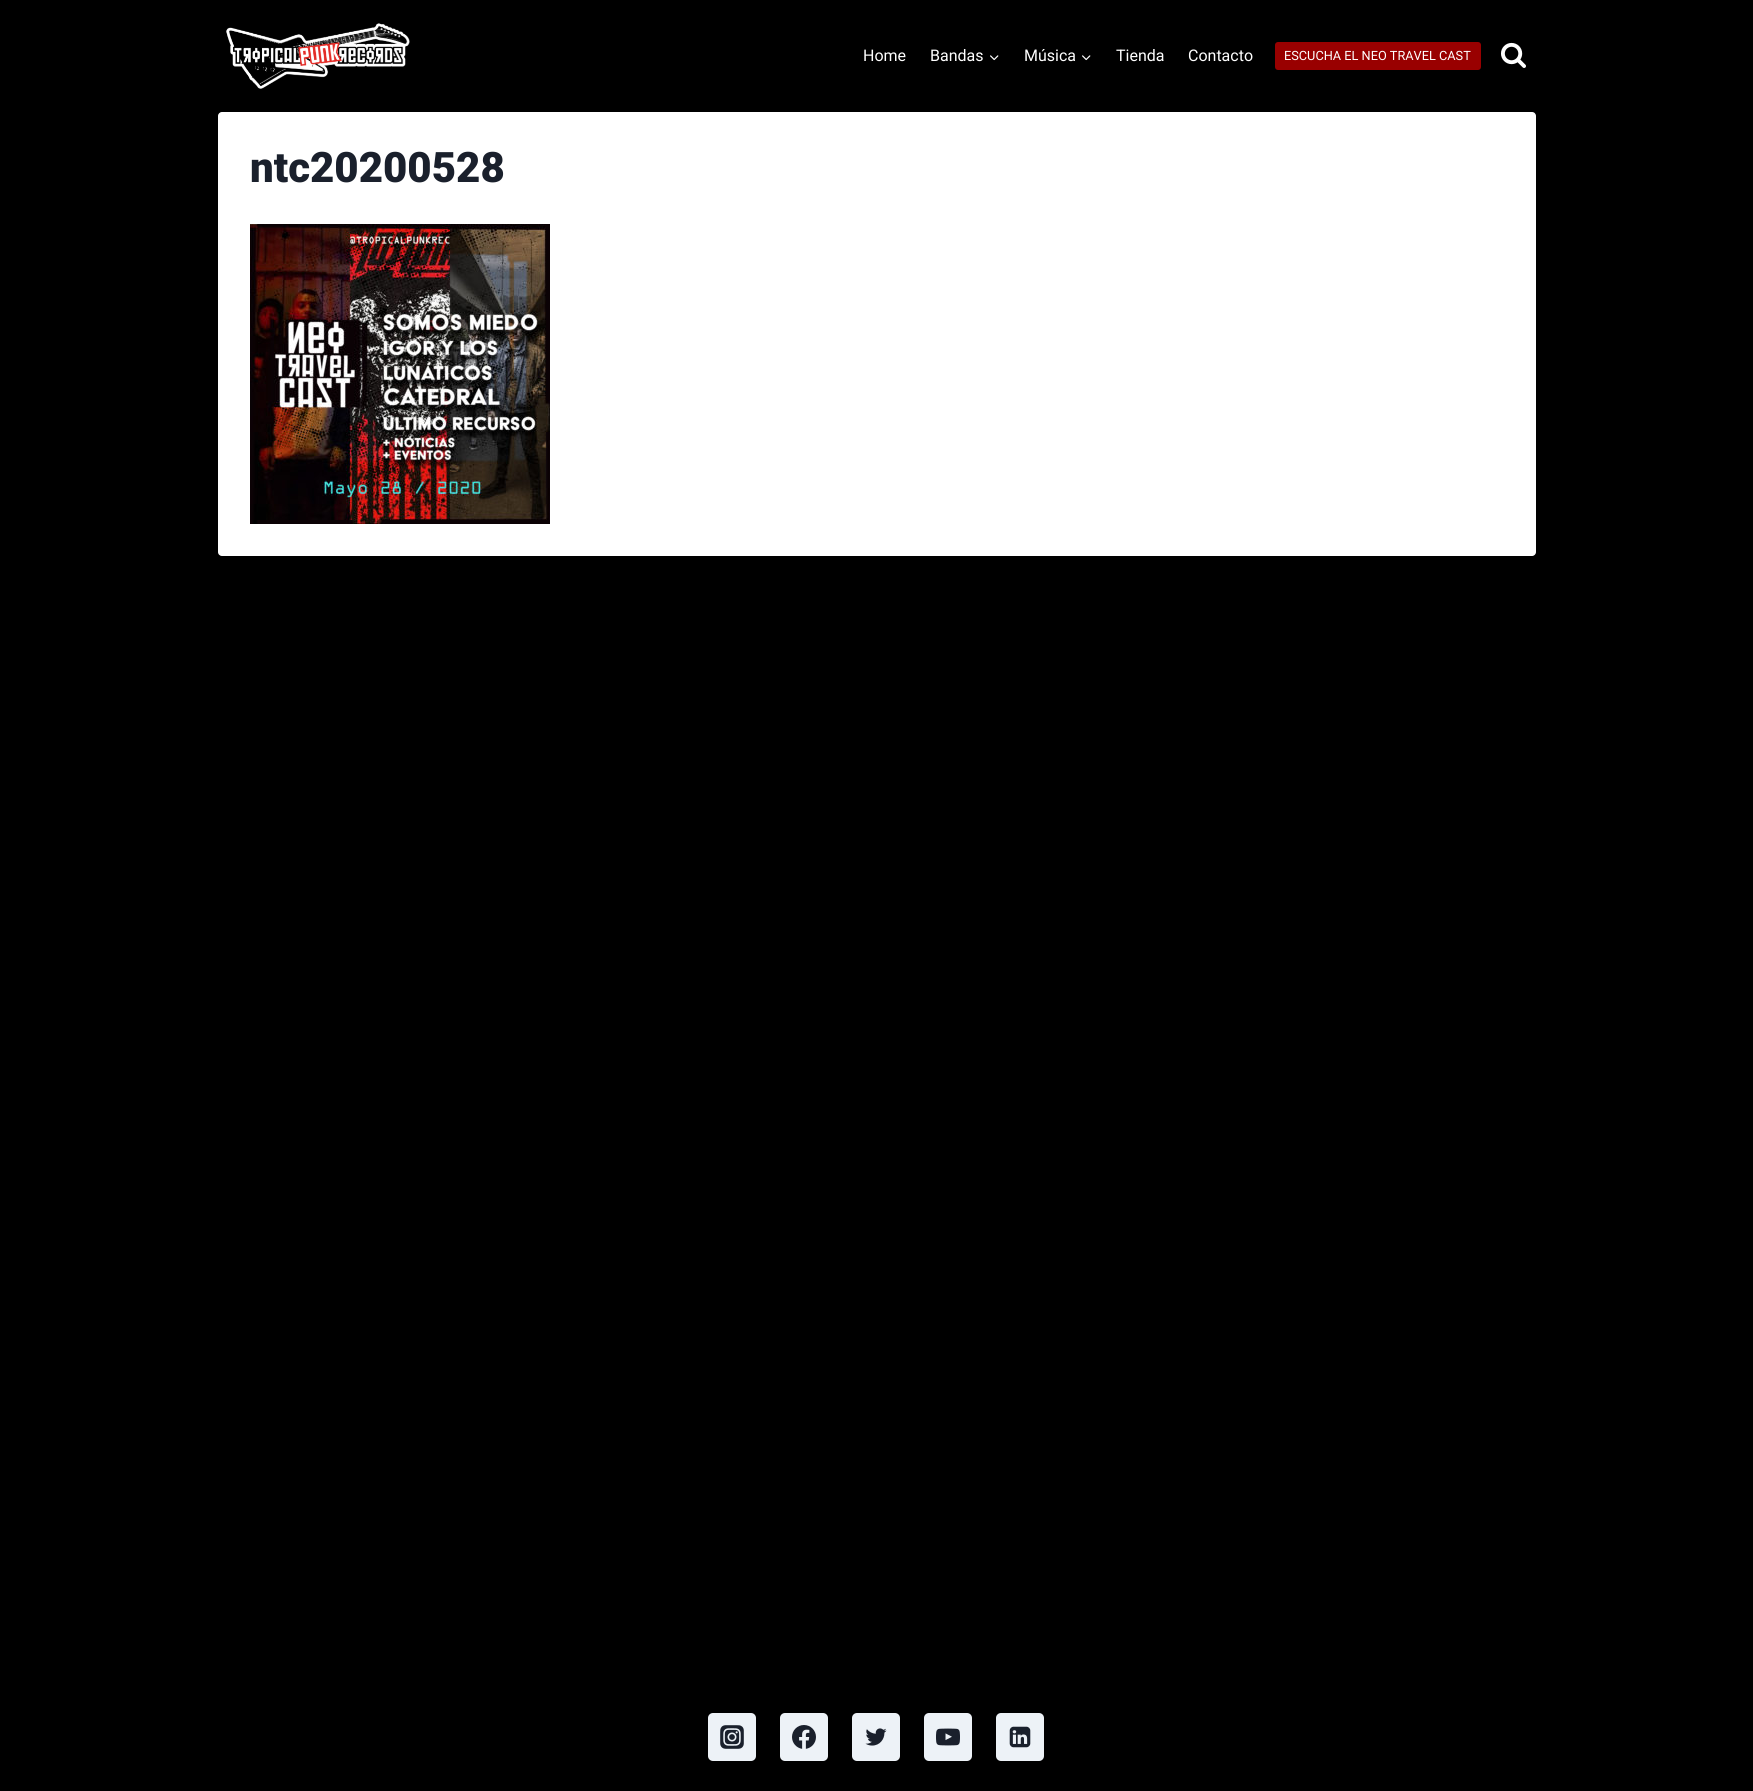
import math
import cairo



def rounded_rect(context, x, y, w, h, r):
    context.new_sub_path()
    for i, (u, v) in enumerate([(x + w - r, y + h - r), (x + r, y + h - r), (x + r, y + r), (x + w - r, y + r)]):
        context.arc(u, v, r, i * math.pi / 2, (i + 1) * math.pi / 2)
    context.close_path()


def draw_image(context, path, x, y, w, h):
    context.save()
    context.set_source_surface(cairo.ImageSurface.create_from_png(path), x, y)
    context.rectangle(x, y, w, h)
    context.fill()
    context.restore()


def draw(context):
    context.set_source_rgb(0, 0, 0)
    context.paint()
    draw_image(context, "images/1.png", 226, 23, 184, 66)
    draw_image(context, "images/2.png", 990, 55, 9, 6)
    draw_image(context, "images/2.png", 1082, 55, 9, 6)
    context.set_source_rgb(153 / 255, 0, 0)
    rounded_rect(context, 1275, 42, 206, 28, 3)
    context.fill()
    draw_image(context, "images/3.png", 1501, 42, 25, 26)
    context.set_source_rgb(1, 1, 1)
    rounded_rect(context, 218, 112, 1318, 444, 4)
    context.fill()
    draw_image(context, "images/4.png", 250, 224, 300, 300)
    context.set_source_rgb(237 / 255, 242 / 255, 247 / 255)
    rounded_rect(context, 708, 1713, 48, 48, 5)
    context.fill()
    draw_image(context, "images/5.png", 720, 1725, 24, 24)
    rounded_rect(context, 780, 1713, 48, 48, 5)
    context.fill()
    draw_image(context, "images/6.png", 792, 1725, 24, 24)
    rounded_rect(context, 852, 1713, 48, 48, 5)
    context.fill()
    draw_image(context, "images/7.png", 865, 1728, 22, 18)
    rounded_rect(context, 924, 1713, 48, 48, 5)
    context.fill()
    draw_image(context, "images/8.png", 936, 1728, 24, 18)
    rounded_rect(context, 996, 1713, 48, 48, 5)
    context.fill()
    draw_image(context, "images/9.png", 1009, 1726, 22, 22)
    context.select_font_face("Roboto")
    context.set_font_size(16)
    context.set_source_rgb(1, 1, 1)
    context.move_to(863, 61)
    context.show_text("Home")
    context.move_to(930, 61)
    context.show_text("Bandas")
    context.move_to(1024, 61)
    context.show_text("Música")
    context.move_to(1116, 61)
    context.show_text("Tienda")
    context.move_to(1188, 61)
    context.show_text("Contacto")
    context.set_font_size(12.75)
    context.move_to(1284, 60)
    context.show_text("ESCUCHA EL NEO TRAVEL CAST")
    context.select_font_face("Roboto Black")
    context.set_font_size(42)
    context.set_source_rgb(26 / 255, 32 / 255, 44 / 255)
    context.move_to(250, 182)
    context.show_text("ntc20200528")


surface = cairo.ImageSurface(cairo.Format.RGB24, 1753, 1791)
context = cairo.Context(surface)
options = cairo.FontOptions()
options.set_hint_metrics(cairo.HintMetrics.OFF)
options.set_hint_style(cairo.HintStyle.NONE)
context.set_font_options(options)
context.set_miter_limit(4)
draw(context)
surface.write_to_png("out.png")
